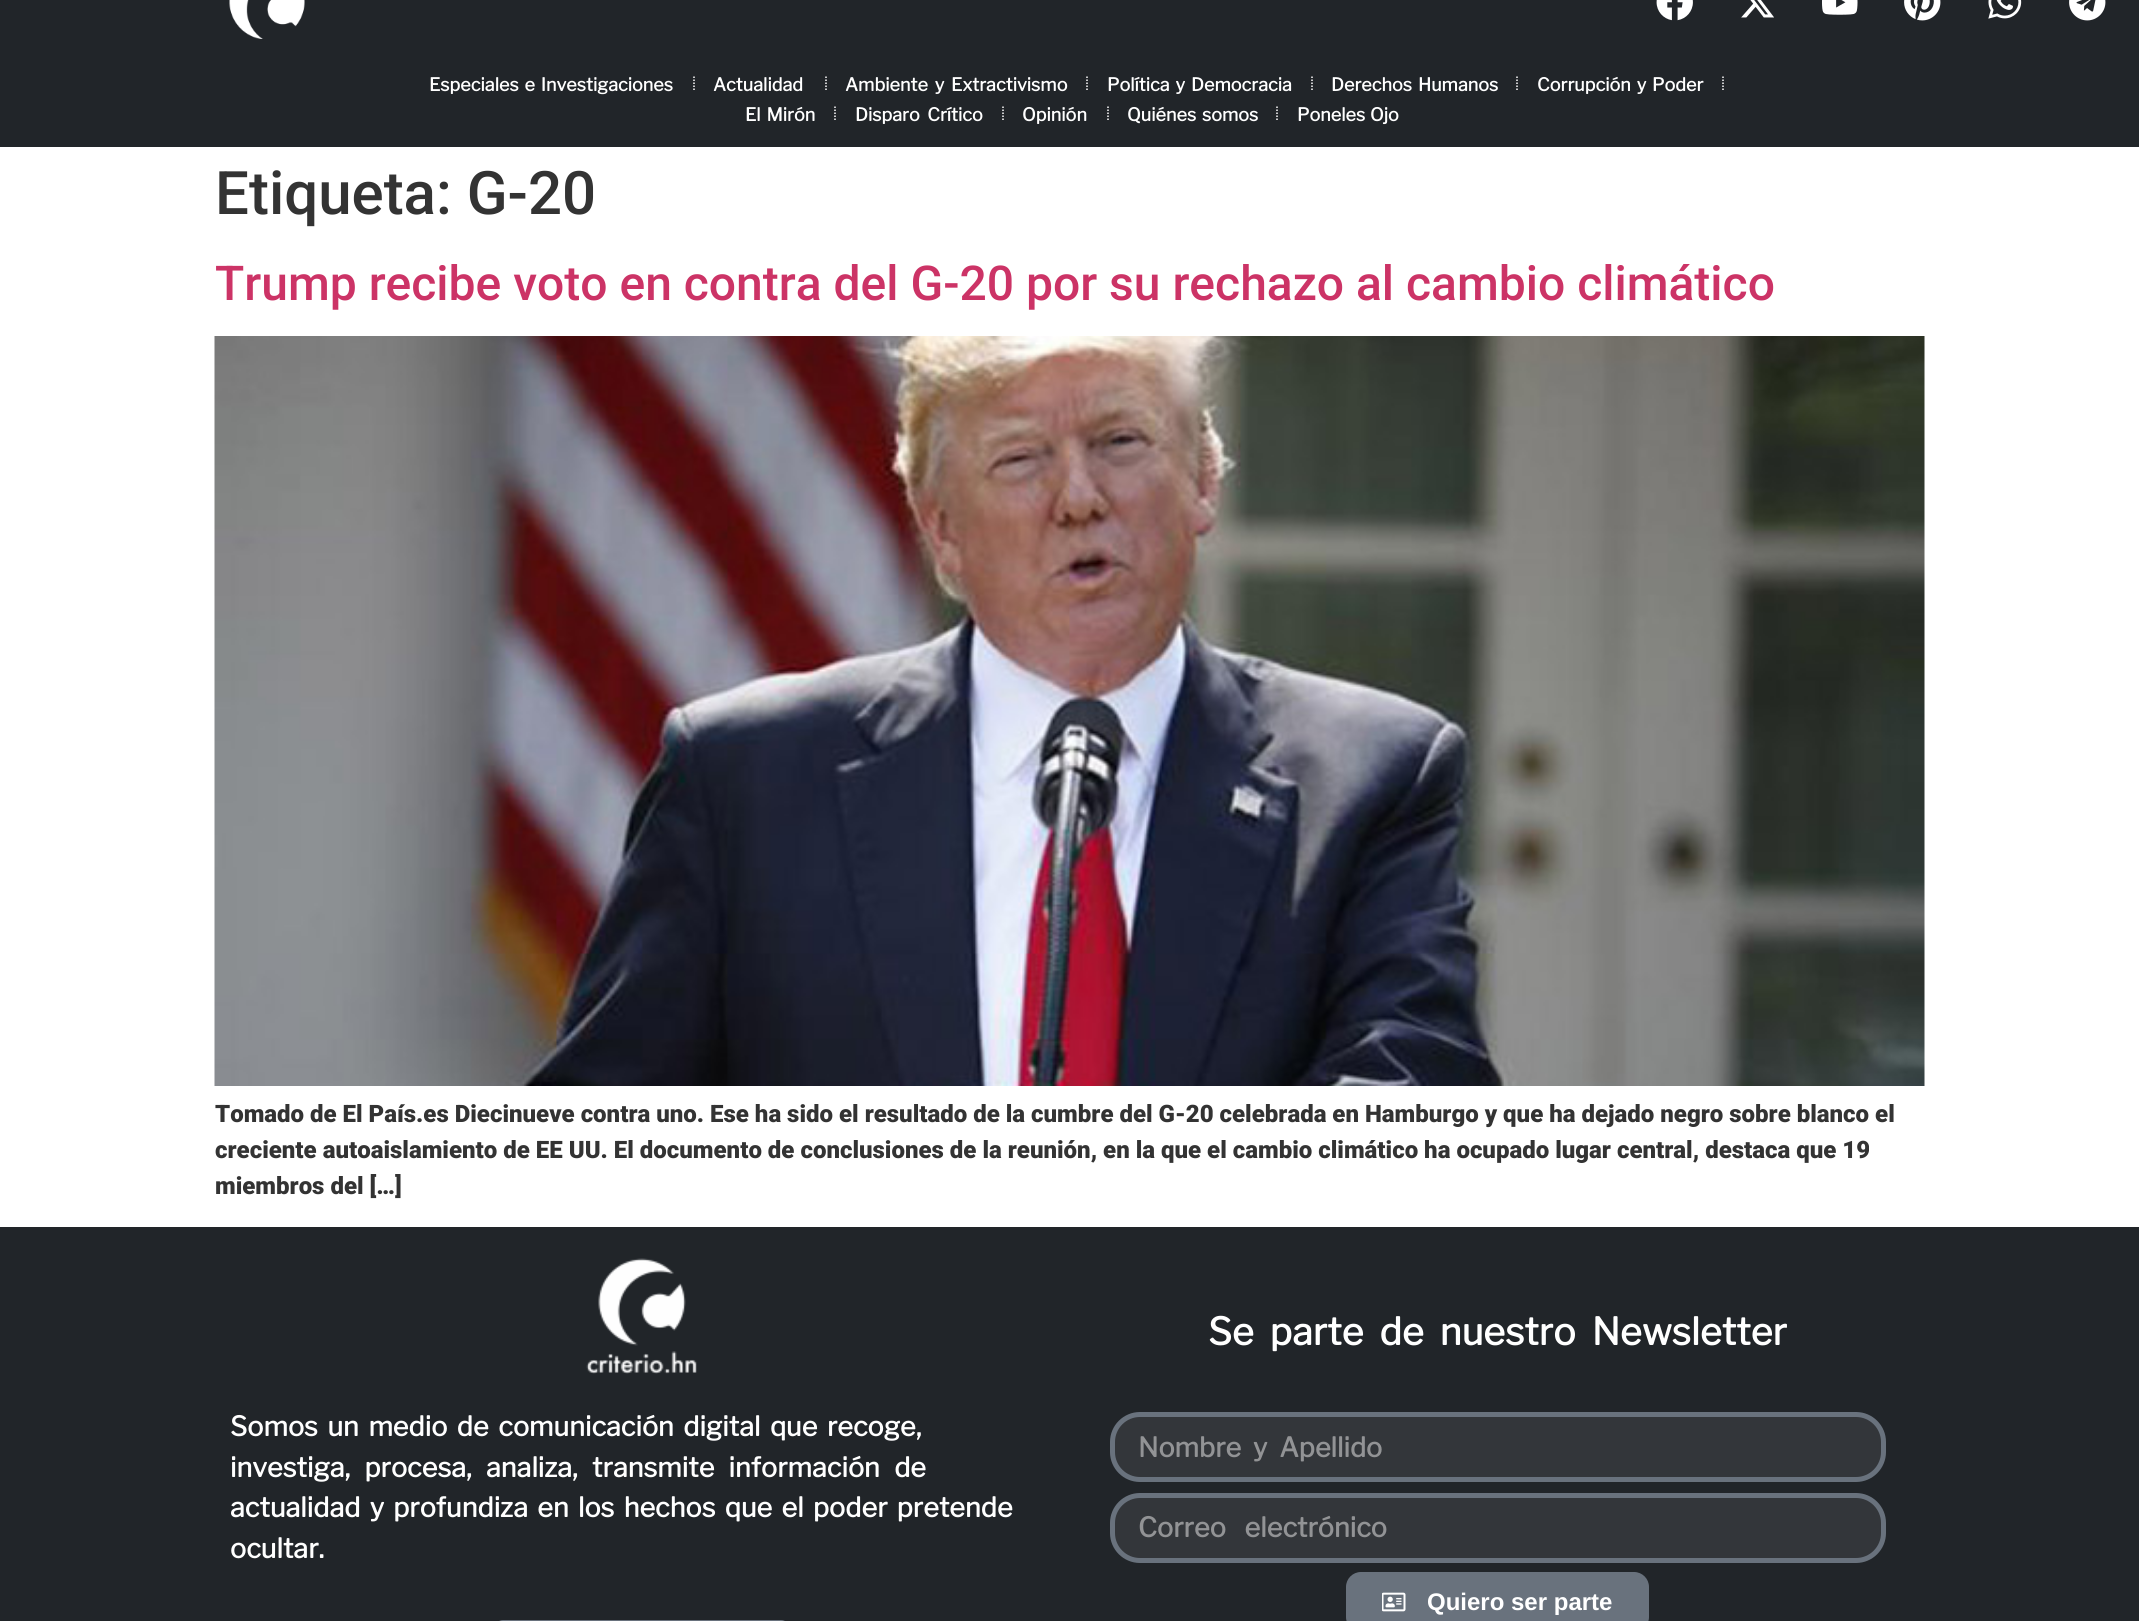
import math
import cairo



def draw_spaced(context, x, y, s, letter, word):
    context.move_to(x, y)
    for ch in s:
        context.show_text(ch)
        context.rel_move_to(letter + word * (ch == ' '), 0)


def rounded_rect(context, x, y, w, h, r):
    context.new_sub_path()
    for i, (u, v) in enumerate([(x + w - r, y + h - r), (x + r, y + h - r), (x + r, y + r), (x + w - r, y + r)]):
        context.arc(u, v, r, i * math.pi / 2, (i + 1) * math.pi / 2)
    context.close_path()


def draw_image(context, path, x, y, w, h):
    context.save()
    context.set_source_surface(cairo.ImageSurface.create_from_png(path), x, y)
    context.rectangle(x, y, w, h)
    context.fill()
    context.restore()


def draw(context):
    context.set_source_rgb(1, 1, 1)
    context.paint()
    context.set_source_rgb(33 / 255, 37 / 255, 41 / 255)
    context.rectangle(0, 0, 2139, 147)
    context.fill()
    draw_image(context, "images/1.png", 229, 0, 76, 39)
    draw_image(context, "images/2.png", 1656, 0, 37, 21)
    draw_image(context, "images/3.png", 1741, 0, 33, 18)
    draw_image(context, "images/4.png", 1822, 0, 36, 15)
    draw_image(context, "images/5.png", 1904, 0, 37, 21)
    draw_image(context, "images/6.png", 1988, 0, 34, 19)
    draw_image(context, "images/7.png", 2069, 0, 37, 21)
    context.new_path()
    context.move_to(694, 76.5)
    context.line_to(694, 91.5)
    context.set_source_rgb(1, 1, 1)
    context.set_line_width(1.5)
    context.set_dash([1.5, 1.5])
    context.stroke()
    context.new_path()
    context.move_to(826, 76.5)
    context.line_to(826, 91.5)
    context.stroke()
    context.new_path()
    context.move_to(1087, 76.5)
    context.line_to(1087, 91.5)
    context.stroke()
    context.new_path()
    context.move_to(1312, 76.5)
    context.line_to(1312, 91.5)
    context.stroke()
    context.new_path()
    context.move_to(1517, 76.5)
    context.line_to(1517, 91.5)
    context.stroke()
    context.new_path()
    context.move_to(1723, 76.5)
    context.line_to(1723, 91.5)
    context.stroke()
    context.new_path()
    context.move_to(835, 106.5)
    context.line_to(835, 121.5)
    context.stroke()
    context.new_path()
    context.move_to(1003, 106.5)
    context.line_to(1003, 121.5)
    context.stroke()
    context.new_path()
    context.move_to(1108, 106.5)
    context.line_to(1108, 121.5)
    context.stroke()
    context.new_path()
    context.move_to(1277, 106.5)
    context.line_to(1277, 121.5)
    context.stroke()
    draw_image(context, "images/8.png", 214, 336, 1711, 750)
    context.set_source_rgb(33 / 255, 37 / 255, 41 / 255)
    context.rectangle(0, 1227, 2139, 394)
    context.fill()
    draw_image(context, "images/9.png", 586, 1258, 111, 116)
    context.set_source_rgb(105 / 255, 114 / 255, 125 / 255)
    rounded_rect(context, 495, 1620, 294, 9, 8)
    context.fill()
    context.set_source_rgb(51 / 255, 54 / 255, 58 / 255)
    rounded_rect(context, 1112.5, 1414.5, 771, 65, 27.5)
    context.fill_preserve()
    context.set_source_rgb(105 / 255, 114 / 255, 125 / 255)
    context.set_line_width(5)
    context.set_dash([])
    context.stroke()
    context.set_source_rgb(51 / 255, 54 / 255, 58 / 255)
    rounded_rect(context, 1112.5, 1495.5, 771, 65, 27.5)
    context.fill_preserve()
    context.set_source_rgb(105 / 255, 114 / 255, 125 / 255)
    context.stroke()
    rounded_rect(context, 1346, 1572, 303, 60, 15)
    context.fill()
    draw_image(context, "images/10.png", 1382, 1592, 24, 20)
    context.select_font_face("Libre Franklin", cairo.FontSlant.NORMAL, cairo.FontWeight.BOLD)
    context.set_font_size(18)
    context.set_source_rgb(1, 1, 1)
    draw_spaced(context, 429, 91, "Especiales e Investigaciones", 0, 2)
    context.move_to(713, 91)
    context.show_text("Actualidad")
    draw_spaced(context, 845, 91, "Ambiente y Extractivismo", 0, 3)
    draw_spaced(context, 1107, 91, "Política y Democracia", 0, 2)
    draw_spaced(context, 1331, 91, "Derechos Humanos", 0, 2)
    draw_spaced(context, 1537, 91, "Corrupción y Poder", 0, 2)
    draw_spaced(context, 745, 121, "El Mirón", 0, 2)
    draw_spaced(context, 855, 121, "Disparo Crítico", 0, 3.5)
    context.move_to(1022, 121)
    context.show_text("Opinión")
    draw_spaced(context, 1127, 121, "Quiénes somos", 0, 2)
    draw_spaced(context, 1297, 121, "Poneles Ojo", 0, 1)
    context.select_font_face("Roboto Medium")
    context.set_font_size(60)
    context.set_source_rgb(51 / 255, 51 / 255, 51 / 255)
    context.move_to(215, 214)
    context.show_text("Etiqueta: G-20")
    context.set_font_size(48)
    context.set_source_rgb(204 / 255, 51 / 255, 102 / 255)
    context.move_to(215, 300)
    context.show_text("Trump recibe voto en contra del G-20 por su rechazo al cambio climático")
    context.select_font_face("Roboto Black")
    context.set_font_size(24)
    context.set_source_rgb(51 / 255, 51 / 255, 51 / 255)
    context.move_to(215, 1122)
    context.show_text("Tomado de El País.es Diecinueve contra uno. Ese ha sido el resultado de la cumbre del G-20 celebrada en Hamburgo y que ha dejado negro sobre blanco el")
    context.move_to(215, 1158)
    context.show_text("creciente autoaislamiento de EE UU. El documento de conclusiones de la reunión, en la que el cambio climático ha ocupado lugar central, destaca que 19")
    context.move_to(215, 1194)
    context.show_text("miembros del […]")
    context.select_font_face("Libre Franklin", cairo.FontSlant.NORMAL, cairo.FontWeight.BOLD)
    context.set_font_size(27)
    context.set_source_rgb(1, 1, 1)
    draw_spaced(context, 230, 1436, "Somos un medio de comunicación digital que recoge,", 0, 3.75)
    draw_spaced(context, 230, 1477, "investiga, procesa, analiza, transmite información de", 0, 8.5)
    draw_spaced(context, 230, 1517, "actualidad y profundiza en los hechos que el poder pretende", 0, 3.5)
    context.move_to(230, 1558)
    context.show_text("ocultar.")
    context.set_font_size(37.5)
    draw_spaced(context, 1208, 1345, "Se parte de nuestro Newsletter", 0, 8)
    context.set_font_size(27)
    context.set_source_rgb(146 / 255, 147 / 255, 149 / 255)
    draw_spaced(context, 1138, 1457, "Nombre y Apellido", 0, 6)
    draw_spaced(context, 1138, 1537, "Correo electrónico", 0, 13)
    context.select_font_face("Liberation Sans", cairo.FontSlant.NORMAL, cairo.FontWeight.BOLD)
    context.set_font_size(24)
    context.set_source_rgb(1, 1, 1)
    context.move_to(1427, 1610)
    context.show_text("Quiero ser parte")


surface = cairo.ImageSurface(cairo.Format.RGB24, 2139, 1621)
context = cairo.Context(surface)
options = cairo.FontOptions()
options.set_hint_metrics(cairo.HintMetrics.OFF)
options.set_hint_style(cairo.HintStyle.NONE)
context.set_font_options(options)
context.set_miter_limit(4)
draw(context)
surface.write_to_png("out.png")
